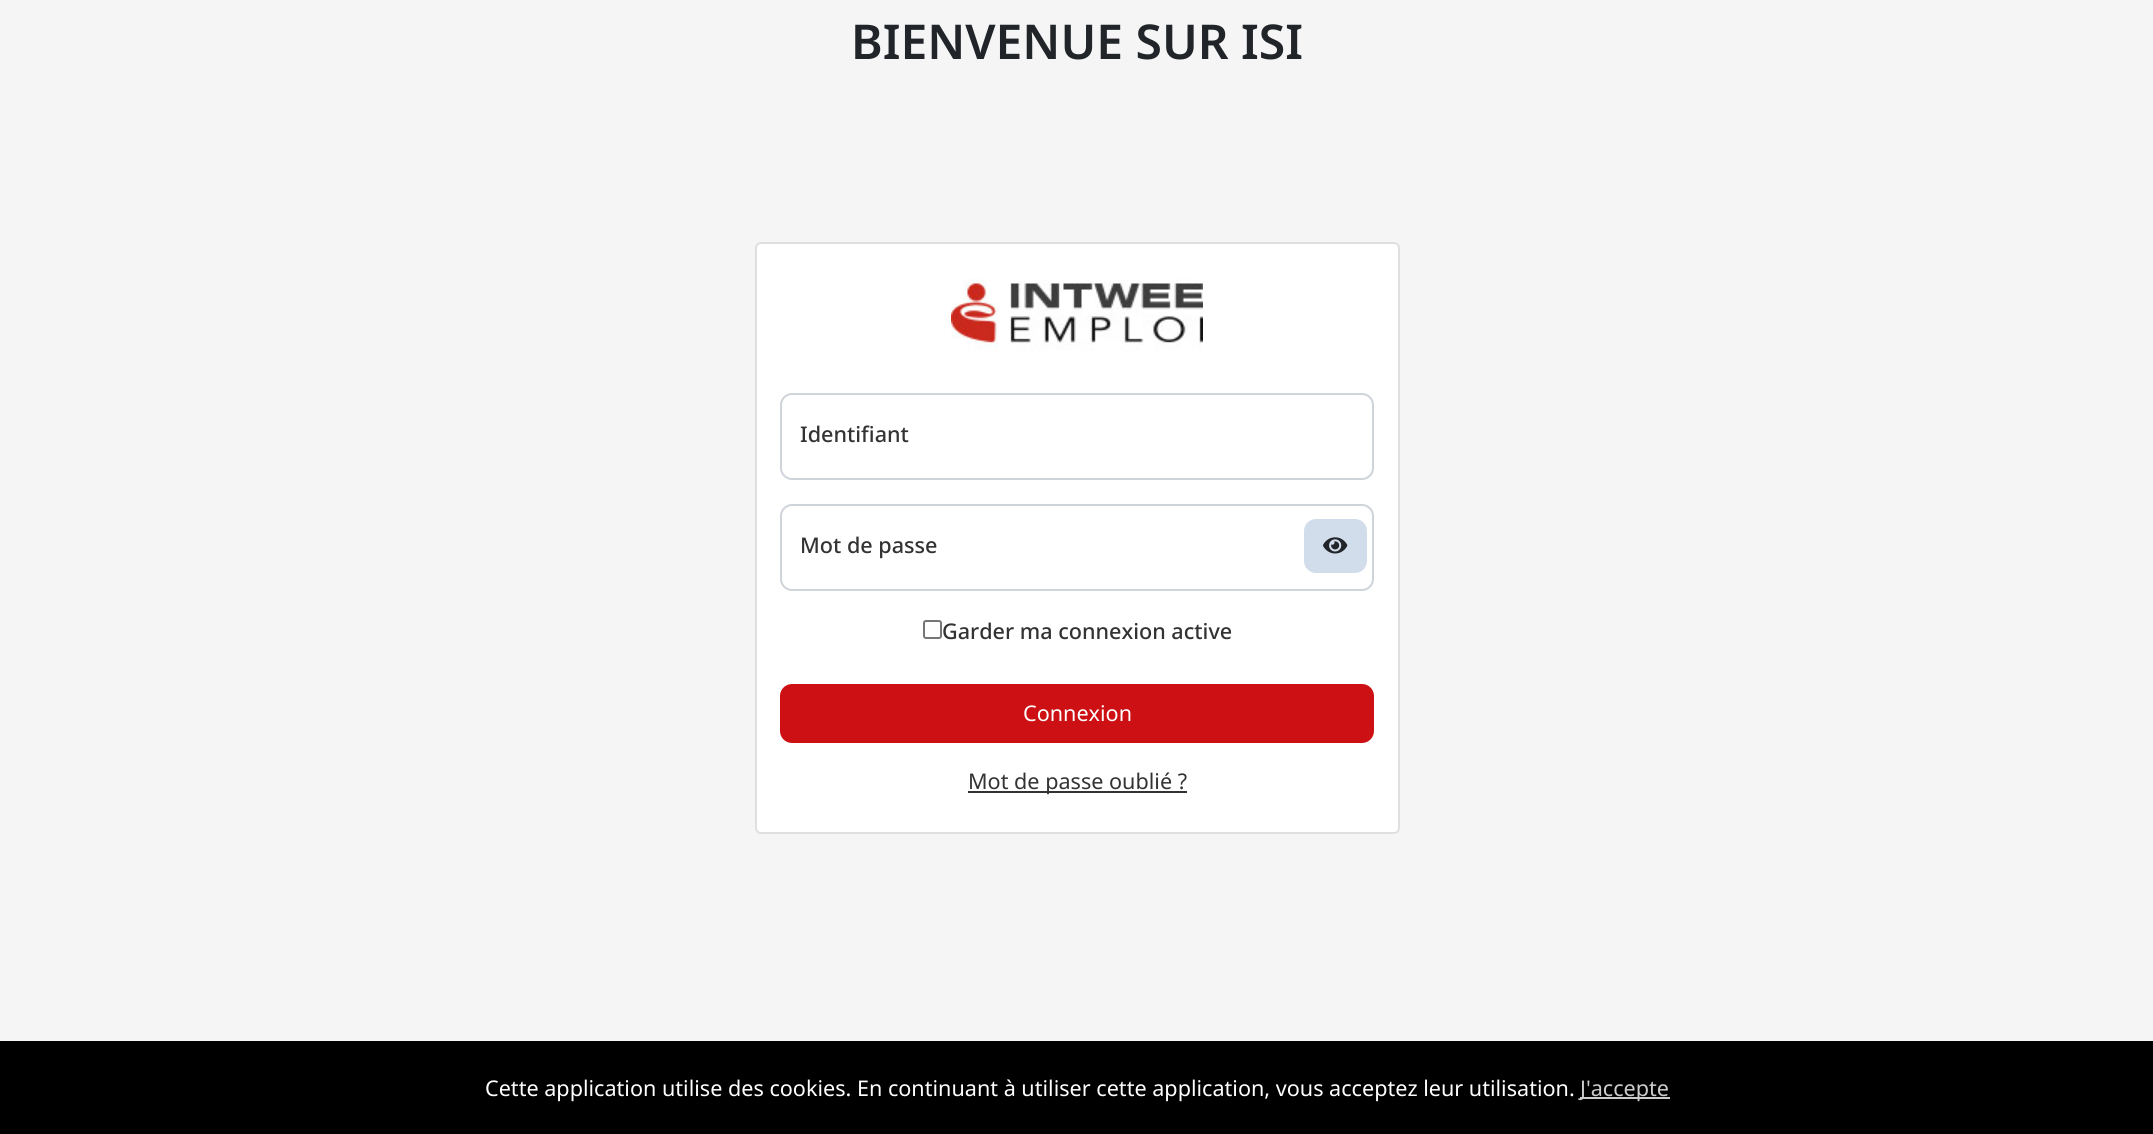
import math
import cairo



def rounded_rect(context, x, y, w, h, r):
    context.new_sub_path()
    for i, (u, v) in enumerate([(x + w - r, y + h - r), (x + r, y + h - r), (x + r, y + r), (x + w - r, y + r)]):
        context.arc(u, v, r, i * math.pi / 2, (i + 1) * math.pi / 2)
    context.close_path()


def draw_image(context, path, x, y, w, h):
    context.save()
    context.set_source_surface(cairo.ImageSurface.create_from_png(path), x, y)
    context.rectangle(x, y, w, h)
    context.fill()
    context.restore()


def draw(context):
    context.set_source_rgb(245 / 255, 245 / 255, 245 / 255)
    context.paint()
    context.set_source_rgb(1, 1, 1)
    rounded_rect(context, 756, 243, 643, 590, 5)
    context.fill_preserve()
    context.set_source_rgb(223 / 255, 223 / 255, 223 / 255)
    context.stroke()
    draw_image(context, "images/1.png", 951, 279, 252, 72)
    rounded_rect(context, 781, 394, 592, 85, 11)
    context.set_source_rgb(206 / 255, 212 / 255, 218 / 255)
    context.stroke()
    rounded_rect(context, 781, 505, 592, 85, 11)
    context.stroke()
    context.set_source_rgb(210 / 255, 221 / 255, 235 / 255)
    rounded_rect(context, 1304, 519, 63, 54, 12)
    context.fill()
    draw_image(context, "images/2.png", 1323, 537, 25, 17)
    rounded_rect(context, 924, 621, 17, 17, 2)
    context.set_source_rgb(118 / 255, 118 / 255, 118 / 255)
    context.stroke()
    context.set_source_rgb(205 / 255, 16 / 255, 19 / 255)
    rounded_rect(context, 781, 685, 592, 57, 11)
    context.fill_preserve()
    context.stroke()
    context.set_source_rgb(51 / 255, 51 / 255, 51 / 255)
    context.rectangle(968, 791, 219, 2)
    context.fill()
    context.set_source_rgb(0, 0, 0)
    context.rectangle(0, 1041, 2153, 93)
    context.fill()
    context.set_source_rgb(204 / 255, 204 / 255, 204 / 255)
    context.rectangle(1580, 1097, 90, 2)
    context.fill()
    context.select_font_face("Noto Sans SemiBold")
    context.set_font_size(48)
    context.set_source_rgb(33 / 255, 37 / 255, 41 / 255)
    context.move_to(851, 59)
    context.show_text("BIENVENUE SUR ISI")
    context.select_font_face("Noto Sans Medium")
    context.set_font_size(21.6)
    context.set_source_rgb(51 / 255, 51 / 255, 51 / 255)
    context.move_to(800, 442)
    context.show_text("Identifiant")
    context.move_to(800, 553)
    context.show_text("Mot de passe")
    context.move_to(942, 639)
    context.show_text("Garder ma connexion active")
    context.select_font_face("Noto Sans")
    context.set_source_rgb(1, 1, 1)
    context.move_to(1023, 721)
    context.show_text("Connexion")
    context.set_source_rgb(51 / 255, 51 / 255, 51 / 255)
    context.move_to(968, 789)
    context.show_text("Mot de passe oublié ?")
    context.set_source_rgb(1, 1, 1)
    context.move_to(485, 1096)
    context.show_text("Cette application utilise des cookies. En continuant à utiliser cette application, vous acceptez leur utilisation.")
    context.set_source_rgb(204 / 255, 204 / 255, 204 / 255)
    context.move_to(1580, 1096)
    context.show_text("J'accepte")


surface = cairo.ImageSurface(cairo.Format.RGB24, 2153, 1134)
context = cairo.Context(surface)
options = cairo.FontOptions()
options.set_hint_metrics(cairo.HintMetrics.OFF)
options.set_hint_style(cairo.HintStyle.NONE)
context.set_font_options(options)
context.set_miter_limit(4)
draw(context)
surface.write_to_png("out.png")
